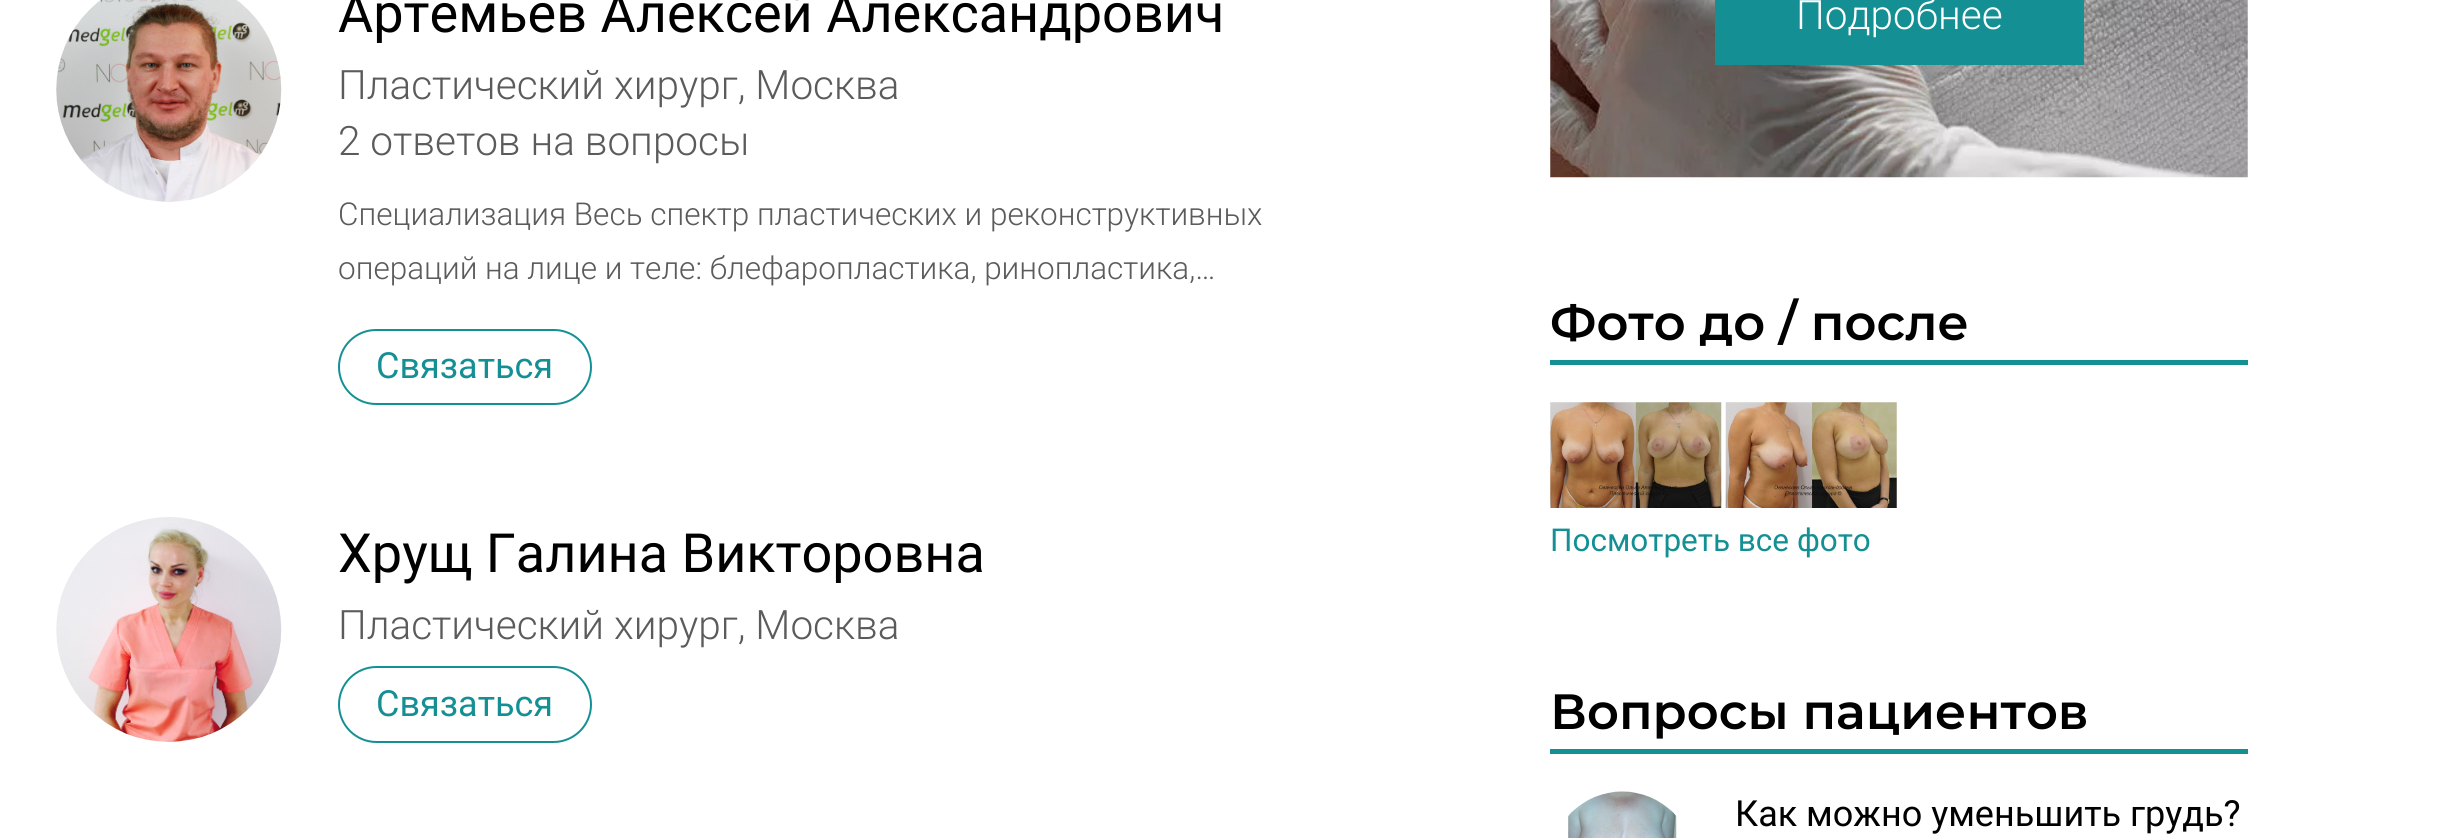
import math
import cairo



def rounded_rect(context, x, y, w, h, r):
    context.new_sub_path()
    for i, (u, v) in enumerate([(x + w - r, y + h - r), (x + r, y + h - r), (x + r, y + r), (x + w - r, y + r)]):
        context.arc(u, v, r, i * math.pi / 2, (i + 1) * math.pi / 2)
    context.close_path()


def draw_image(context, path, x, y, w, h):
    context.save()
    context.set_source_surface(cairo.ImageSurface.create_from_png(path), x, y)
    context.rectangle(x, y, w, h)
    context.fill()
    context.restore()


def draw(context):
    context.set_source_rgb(1, 1, 1)
    context.paint()
    draw_image(context, "images/1.png", 56, 0, 226, 202)
    rounded_rect(context, 339, 330, 252, 74, 37)
    context.set_source_rgb(20 / 255, 144 / 255, 149 / 255)
    context.stroke()
    draw_image(context, "images/2.png", 56, 517, 226, 225)
    rounded_rect(context, 339, 667, 252, 75, 37.5)
    context.stroke()
    draw_image(context, "images/3.png", 1550, 0, 698, 178)
    context.rectangle(1715, 0, 369, 65)
    context.fill()
    context.rectangle(1550, 360, 698, 5)
    context.fill()
    draw_image(context, "images/4.png", 1550, 402, 172, 106)
    draw_image(context, "images/5.png", 1725, 402, 172, 106)
    context.rectangle(1550, 749, 698, 5)
    context.fill()
    draw_image(context, "images/6.png", 1568, 791, 109, 47)
    context.select_font_face("Roboto")
    context.set_font_size(54)
    context.set_source_rgb(0, 0, 0)
    context.move_to(338, 32)
    context.show_text("Артемьев Алексей Александрович")
    context.select_font_face("Roboto Light")
    context.set_font_size(40.5)
    context.set_source_rgb(91 / 255, 91 / 255, 91 / 255)
    context.move_to(338, 99)
    context.show_text("Пластический хирург, Москва")
    context.move_to(338, 155)
    context.show_text("2 ответов на вопросы")
    context.set_font_size(31.5)
    context.move_to(338, 225)
    context.show_text("Специализация Весь спектр пластических и реконструктивных")
    context.move_to(338, 279)
    context.show_text("операций на лице и теле: блефаропластика, ринопластика,…")
    context.select_font_face("Roboto")
    context.set_font_size(36)
    context.set_source_rgb(20 / 255, 144 / 255, 149 / 255)
    context.move_to(376, 378)
    context.show_text("Связаться")
    context.set_font_size(54)
    context.set_source_rgb(0, 0, 0)
    context.move_to(338, 572)
    context.show_text("Хрущ Галина Викторовна")
    context.select_font_face("Roboto Light")
    context.set_font_size(40.5)
    context.set_source_rgb(91 / 255, 91 / 255, 91 / 255)
    context.move_to(338, 639)
    context.show_text("Пластический хирург, Москва")
    context.select_font_face("Roboto")
    context.set_font_size(36)
    context.set_source_rgb(20 / 255, 144 / 255, 149 / 255)
    context.move_to(376, 716)
    context.show_text("Связаться")
    context.select_font_face("Roboto Light")
    context.set_font_size(40.5)
    context.set_source_rgb(1, 1, 1)
    context.move_to(1796, 29)
    context.show_text("Подробнее")
    context.select_font_face("Montserrat SemiBold")
    context.set_font_size(49.5)
    context.set_source_rgb(0, 0, 0)
    context.move_to(1550, 340)
    context.show_text("Фото до / после")
    context.select_font_face("Roboto")
    context.set_font_size(31.5)
    context.set_source_rgb(20 / 255, 144 / 255, 149 / 255)
    context.move_to(1550, 551)
    context.show_text("Посмотреть все фото")
    context.select_font_face("Montserrat SemiBold")
    context.set_font_size(49.5)
    context.set_source_rgb(0, 0, 0)
    context.move_to(1550, 729)
    context.show_text("Вопросы пациентов")
    context.select_font_face("Roboto")
    context.set_font_size(36)
    context.move_to(1735, 826)
    context.show_text("Как можно уменьшить грудь?")


surface = cairo.ImageSurface(cairo.Format.RGB24, 2451, 838)
context = cairo.Context(surface)
options = cairo.FontOptions()
options.set_hint_metrics(cairo.HintMetrics.OFF)
options.set_hint_style(cairo.HintStyle.NONE)
context.set_font_options(options)
context.set_miter_limit(4)
draw(context)
surface.write_to_png("out.png")
